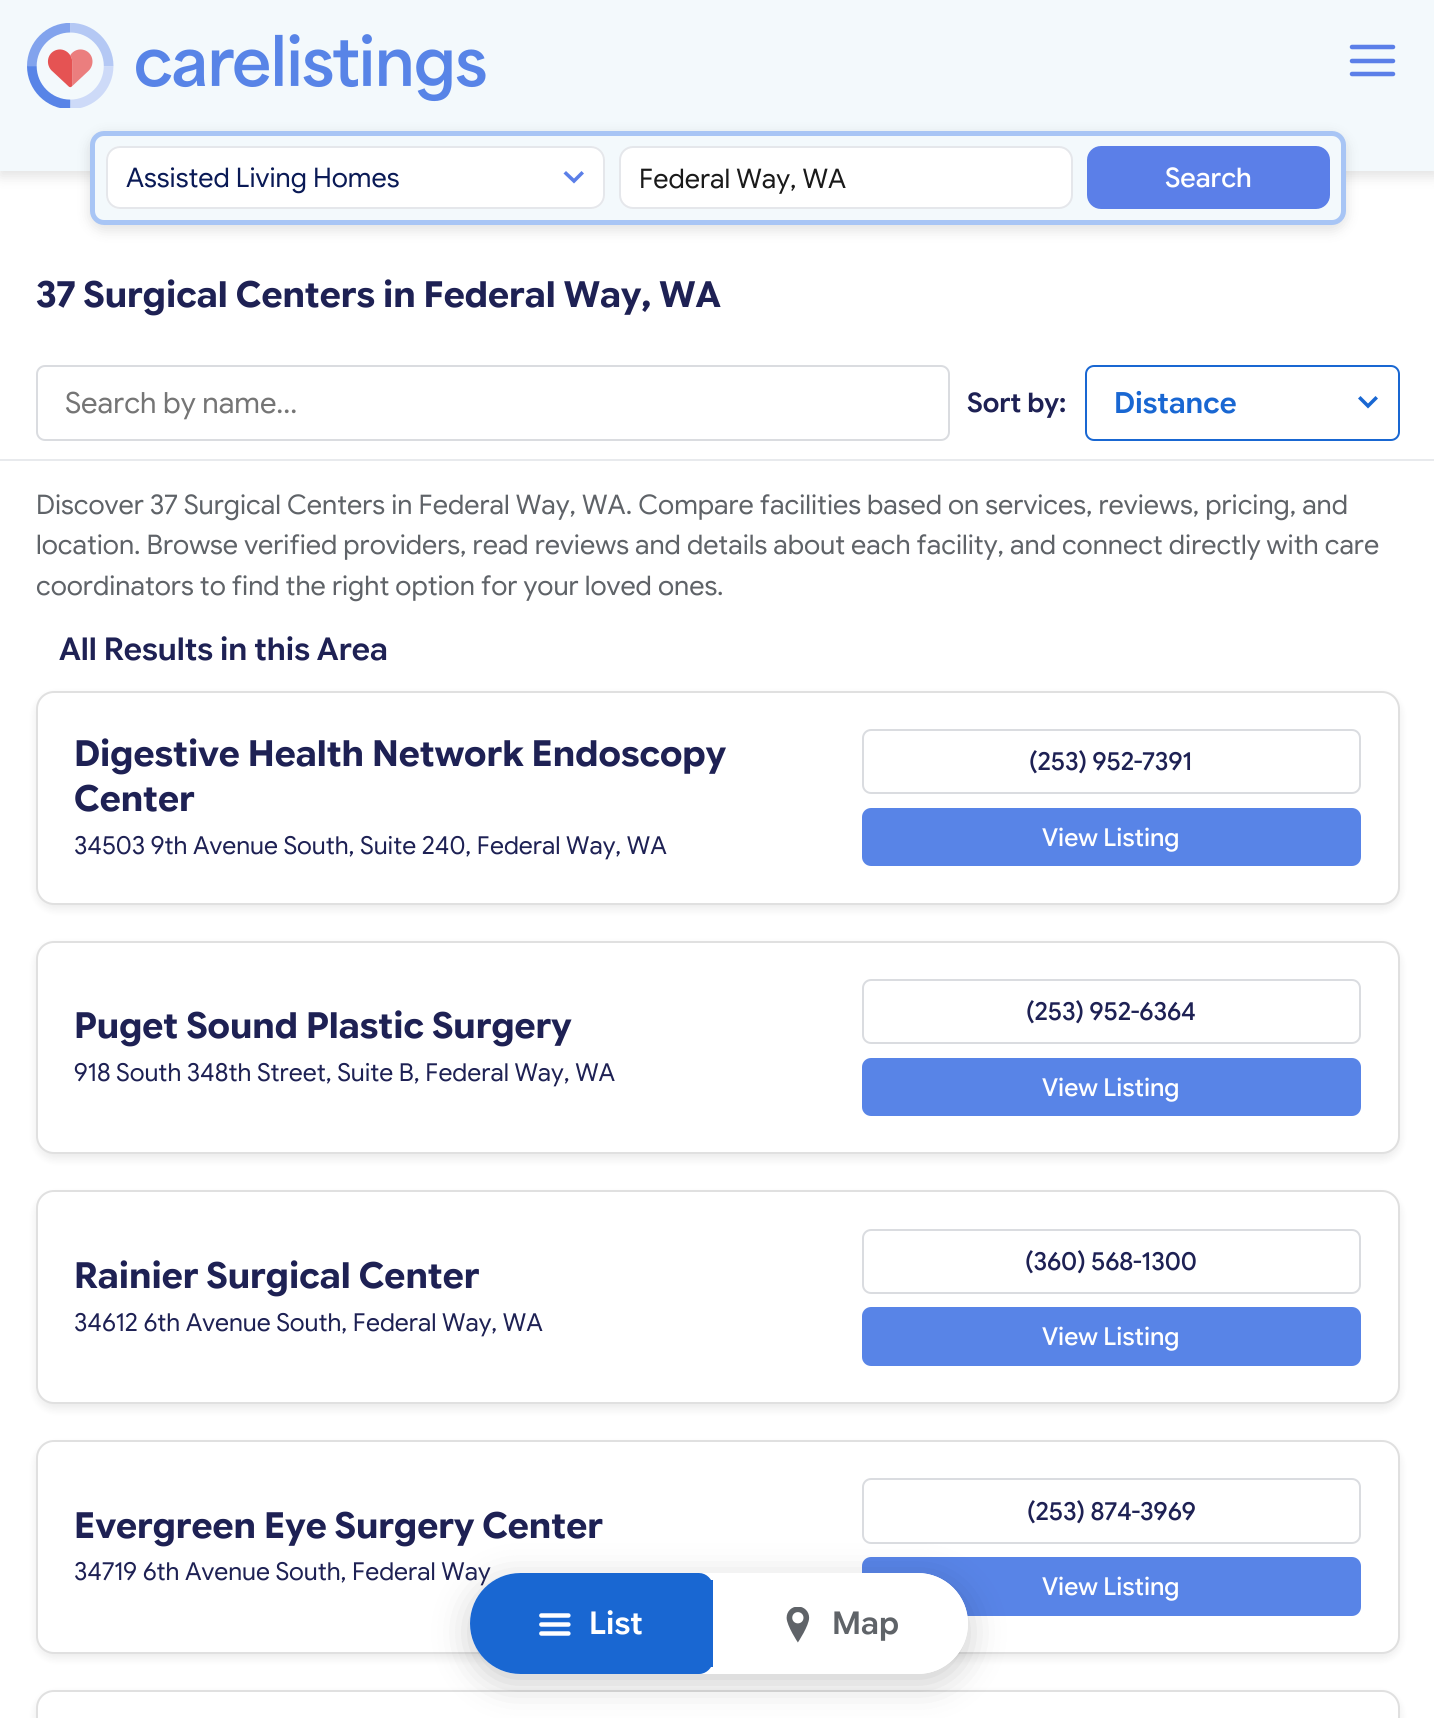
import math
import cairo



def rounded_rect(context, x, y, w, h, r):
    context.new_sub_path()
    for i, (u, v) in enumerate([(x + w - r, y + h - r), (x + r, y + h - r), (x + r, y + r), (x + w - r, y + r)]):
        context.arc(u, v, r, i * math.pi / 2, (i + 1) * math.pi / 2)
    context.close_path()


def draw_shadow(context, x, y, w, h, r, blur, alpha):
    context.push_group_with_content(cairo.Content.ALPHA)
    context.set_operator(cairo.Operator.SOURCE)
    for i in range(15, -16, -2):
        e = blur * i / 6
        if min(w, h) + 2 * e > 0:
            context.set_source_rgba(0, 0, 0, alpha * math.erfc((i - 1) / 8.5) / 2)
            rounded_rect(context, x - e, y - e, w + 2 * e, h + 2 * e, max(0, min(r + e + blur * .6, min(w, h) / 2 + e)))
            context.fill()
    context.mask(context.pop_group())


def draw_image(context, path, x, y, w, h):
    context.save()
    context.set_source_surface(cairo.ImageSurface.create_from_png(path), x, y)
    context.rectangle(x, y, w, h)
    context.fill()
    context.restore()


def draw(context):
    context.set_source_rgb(1, 1, 1)
    context.paint()
    context.set_source_rgb(0, 0, 0)
    draw_shadow(context, 0, 5, 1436, 171, 0, 7, 0.12)
    context.set_source_rgb(243 / 255, 249 / 255, 252 / 255)
    context.rectangle(0, 0, 1434, 171)
    context.fill()
    draw_image(context, "images/1.png", 27, 23, 459, 85)
    context.new_path()
    context.move_to(1352, 61)
    context.line_to(1393, 61)
    context.move_to(1352, 47)
    context.line_to(1393, 47)
    context.move_to(1352, 74)
    context.line_to(1393, 74)
    context.set_source_rgb(91 / 255, 127 / 255, 232 / 255)
    context.set_line_width(4.5)
    context.set_line_cap(cairo.LineCap.ROUND)
    context.stroke()
    context.set_source_rgb(0, 0, 0)
    draw_shadow(context, 90, 135, 1256, 95, 14, 7, 0.12)
    context.set_source_rgb(243 / 255, 249 / 255, 252 / 255)
    rounded_rect(context, 92.5, 133.5, 1251, 89, 11.5)
    context.fill_preserve()
    context.set_source_rgb(168 / 255, 197 / 255, 245 / 255)
    context.set_line_width(5)
    context.set_line_cap(cairo.LineCap.BUTT)
    context.stroke()
    context.set_source_rgb(1, 1, 1)
    rounded_rect(context, 106, 146, 499, 63, 14)
    context.fill()
    context.set_source_rgb(91 / 255, 127 / 255, 232 / 255)
    context.new_path()
    context.move_to(566, 171)
    context.line_to(574, 178.5)
    context.line_to(581.5, 171)
    context.line_to(584, 173.5)
    context.line_to(574, 183.5)
    context.line_to(563.5, 173.5)
    context.close_path()
    context.fill()
    rounded_rect(context, 107, 147, 497, 61, 13)
    context.set_source_rgb(229 / 255, 231 / 255, 235 / 255)
    context.set_line_width(2)
    context.stroke()
    context.set_source_rgb(1, 1, 1)
    rounded_rect(context, 620, 147, 452, 61, 13)
    context.fill_preserve()
    context.set_source_rgb(229 / 255, 231 / 255, 235 / 255)
    context.stroke()
    context.set_source_rgb(91 / 255, 127 / 255, 232 / 255)
    rounded_rect(context, 1087, 146, 243, 63, 14)
    context.fill()
    rounded_rect(context, 37, 366, 912, 74, 8)
    context.set_source_rgb(218 / 255, 220 / 255, 224 / 255)
    context.stroke()
    context.set_source_rgb(25 / 255, 103 / 255, 210 / 255)
    context.new_path()
    context.move_to(1360.5, 396)
    context.line_to(1368, 403.5)
    context.line_to(1375.5, 396)
    context.line_to(1378, 398.5)
    context.line_to(1368, 408.5)
    context.line_to(1358, 398.5)
    context.close_path()
    context.fill()
    rounded_rect(context, 1086, 366, 313, 74, 8)
    context.stroke()
    context.set_source_rgb(232 / 255, 234 / 255, 237 / 255)
    context.rectangle(0, 459, 1434, 2)
    context.fill()
    context.set_source_rgb(0, 0, 0)
    draw_shadow(context, 36, 695, 1364, 214, 18, 4.5, 0.08)
    context.set_source_rgb(1, 1, 1)
    rounded_rect(context, 37, 692, 1362, 212, 17)
    context.fill_preserve()
    context.set_source_rgb(224 / 255, 224 / 255, 224 / 255)
    context.stroke()
    rounded_rect(context, 863, 730, 497, 63, 8)
    context.set_source_rgb(218 / 255, 220 / 255, 224 / 255)
    context.stroke()
    context.set_source_rgb(88 / 255, 132 / 255, 231 / 255)
    rounded_rect(context, 862, 808, 499, 58, 9)
    context.fill()
    context.set_source_rgb(0, 0, 0)
    draw_shadow(context, 36, 945, 1364, 214, 18, 4.5, 0.08)
    context.set_source_rgb(1, 1, 1)
    rounded_rect(context, 37, 942, 1362, 211, 17)
    context.fill_preserve()
    context.set_source_rgb(224 / 255, 224 / 255, 224 / 255)
    context.stroke()
    rounded_rect(context, 863, 980, 497, 63, 8)
    context.set_source_rgb(218 / 255, 220 / 255, 224 / 255)
    context.stroke()
    context.set_source_rgb(88 / 255, 132 / 255, 231 / 255)
    rounded_rect(context, 862, 1058, 499, 58, 9)
    context.fill()
    context.set_source_rgb(0, 0, 0)
    draw_shadow(context, 36, 1195, 1364, 214, 18, 4.5, 0.08)
    context.set_source_rgb(1, 1, 1)
    rounded_rect(context, 37, 1191, 1362, 212, 17)
    context.fill_preserve()
    context.set_source_rgb(224 / 255, 224 / 255, 224 / 255)
    context.stroke()
    rounded_rect(context, 863, 1230, 497, 63, 8)
    context.set_source_rgb(218 / 255, 220 / 255, 224 / 255)
    context.stroke()
    context.set_source_rgb(88 / 255, 132 / 255, 231 / 255)
    rounded_rect(context, 862, 1307, 499, 59, 9)
    context.fill()
    context.set_source_rgb(0, 0, 0)
    draw_shadow(context, 36, 1445, 1364, 213, 18, 4.5, 0.08)
    context.set_source_rgb(1, 1, 1)
    rounded_rect(context, 37, 1441, 1362, 212, 17)
    context.fill_preserve()
    context.set_source_rgb(224 / 255, 224 / 255, 224 / 255)
    context.stroke()
    rounded_rect(context, 863, 1479, 497, 64, 8)
    context.set_source_rgb(218 / 255, 220 / 255, 224 / 255)
    context.stroke()
    context.set_source_rgb(88 / 255, 132 / 255, 231 / 255)
    rounded_rect(context, 862, 1557, 499, 59, 9)
    context.fill()
    context.set_source_rgb(0, 0, 0)
    draw_shadow(context, 36, 1694, 1364, 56, 18, 4.5, 0.08)
    context.set_source_rgb(1, 1, 1)
    rounded_rect(context, 37, 1691, 1362, 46, 17)
    context.fill_preserve()
    context.set_source_rgb(224 / 255, 224 / 255, 224 / 255)
    context.stroke()
    context.set_source_rgb(0, 0, 0)
    draw_shadow(context, 470, 1582, 498, 101, 50.5, 18, 0.2)
    context.select_font_face("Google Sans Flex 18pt")
    context.set_font_size(27)
    context.set_source_rgb(10 / 255, 26 / 255, 86 / 255)
    context.move_to(126, 187)
    context.show_text("Assisted Living Homes")
    context.set_source_rgb(26 / 255, 26 / 255, 26 / 255)
    context.move_to(639, 188)
    context.show_text("Federal Way, WA")
    context.select_font_face("Google Sans Flex 18pt Medium")
    context.set_source_rgb(1, 1, 1)
    context.move_to(1165, 187)
    context.show_text("Search")
    context.select_font_face("Google Sans Flex 18pt", cairo.FontSlant.NORMAL, cairo.FontWeight.BOLD)
    context.set_font_size(36)
    context.set_source_rgb(30 / 255, 33 / 255, 84 / 255)
    context.move_to(36, 307)
    context.show_text("37 Surgical Centers in Federal Way, WA")
    context.select_font_face("Google Sans Flex 18pt")
    context.set_font_size(29.25)
    context.set_source_rgb(117 / 255, 117 / 255, 117 / 255)
    context.move_to(65, 413)
    context.show_text("Search by name...")
    context.select_font_face("Google Sans Flex 18pt SemiBold")
    context.set_font_size(27)
    context.set_source_rgb(30 / 255, 33 / 255, 84 / 255)
    context.move_to(967, 412)
    context.show_text("Sort by:")
    context.set_font_size(29.25)
    context.set_source_rgb(25 / 255, 103 / 255, 210 / 255)
    context.move_to(1114, 413)
    context.show_text("Distance")
    context.select_font_face("Google Sans Flex 18pt")
    context.set_font_size(27)
    context.set_source_rgb(95 / 255, 99 / 255, 104 / 255)
    context.move_to(36, 514)
    context.show_text("Discover 37 Surgical Centers in Federal Way, WA. Compare facilities based on services, reviews, pricing, and")
    context.move_to(36, 554)
    context.show_text("location. Browse verified providers, read reviews and details about each facility, and connect directly with care")
    context.move_to(36, 595)
    context.show_text("coordinators to find the right option for your loved ones.")
    context.select_font_face("Google Sans Flex 18pt SemiBold")
    context.set_font_size(31.5)
    context.set_source_rgb(30 / 255, 33 / 255, 84 / 255)
    context.move_to(59, 660)
    context.show_text("All Results in this Area")
    context.select_font_face("Google Sans Flex 18pt", cairo.FontSlant.NORMAL, cairo.FontWeight.BOLD)
    context.set_font_size(36)
    context.move_to(74, 766)
    context.show_text("Digestive Health Network Endoscopy")
    context.move_to(74, 811)
    context.show_text("Center")
    context.select_font_face("Google Sans Flex 18pt")
    context.set_font_size(24.75)
    context.move_to(74, 854)
    context.show_text("34503 9th Avenue South, Suite 240, Federal Way, WA")
    context.select_font_face("Google Sans Flex 18pt Medium")
    context.move_to(1029, 770)
    context.show_text("(253) 952-7391")
    context.set_source_rgb(1, 1, 1)
    context.move_to(1042, 846)
    context.show_text("View Listing")
    context.select_font_face("Google Sans Flex 18pt", cairo.FontSlant.NORMAL, cairo.FontWeight.BOLD)
    context.set_font_size(36)
    context.set_source_rgb(30 / 255, 33 / 255, 84 / 255)
    context.move_to(74, 1038)
    context.show_text("Puget Sound Plastic Surgery")
    context.select_font_face("Google Sans Flex 18pt")
    context.set_font_size(24.75)
    context.move_to(74, 1081)
    context.show_text("918 South 348th Street, Suite B, Federal Way, WA")
    context.select_font_face("Google Sans Flex 18pt Medium")
    context.move_to(1026, 1020)
    context.show_text("(253) 952-6364")
    context.set_source_rgb(1, 1, 1)
    context.move_to(1042, 1096)
    context.show_text("View Listing")
    context.select_font_face("Google Sans Flex 18pt", cairo.FontSlant.NORMAL, cairo.FontWeight.BOLD)
    context.set_font_size(36)
    context.set_source_rgb(30 / 255, 33 / 255, 84 / 255)
    context.move_to(74, 1288)
    context.show_text("Rainier Surgical Center")
    context.select_font_face("Google Sans Flex 18pt")
    context.set_font_size(24.75)
    context.move_to(74, 1331)
    context.show_text("34612 6th Avenue South, Federal Way, WA")
    context.select_font_face("Google Sans Flex 18pt Medium")
    context.move_to(1025, 1270)
    context.show_text("(360) 568-1300")
    context.set_source_rgb(1, 1, 1)
    context.move_to(1042, 1345)
    context.show_text("View Listing")
    context.select_font_face("Google Sans Flex 18pt", cairo.FontSlant.NORMAL, cairo.FontWeight.BOLD)
    context.set_font_size(36)
    context.set_source_rgb(30 / 255, 33 / 255, 84 / 255)
    context.move_to(74, 1538)
    context.show_text("Evergreen Eye Surgery Center")
    context.select_font_face("Google Sans Flex 18pt")
    context.set_font_size(24.75)
    context.move_to(74, 1580)
    context.show_text("34719 6th Avenue South, Federal Way")
    context.select_font_face("Google Sans Flex 18pt Medium")
    context.move_to(1027, 1520)
    context.show_text("(253) 874-3969")
    context.set_source_rgb(1, 1, 1)
    context.move_to(1042, 1595)
    context.show_text("View Listing")
    rounded_rect(context, 470, 1573, 498, 101, 50.5)
    context.fill()
    context.set_source_rgb(25 / 255, 103 / 255, 210 / 255)
    context.new_path()
    context.move_to(520.5, 1573)
    context.line_to(699, 1573)
    context.curve_to(706.5, 1573, 713, 1579.5, 713, 1587)
    context.line_to(713, 1660)
    context.curve_to(713, 1667.5, 706.5, 1674, 699, 1674)
    context.line_to(520.5, 1674)
    context.curve_to(492.5, 1674, 470, 1651.5, 470, 1623.5)
    context.curve_to(470, 1595.5, 492.5, 1573, 520.5, 1573)
    context.close_path()
    context.fill()
    context.rectangle(711, 1580, 2, 87)
    context.fill()
    draw_image(context, "images/2.png", 539, 1613, 32, 23)
    context.select_font_face("Google Sans Flex 18pt SemiBold")
    context.set_font_size(31.5)
    context.set_source_rgb(1, 1, 1)
    context.move_to(589, 1634)
    context.show_text("List")
    context.new_path()
    context.move_to(727, 1573)
    context.line_to(917.5, 1573)
    context.curve_to(945.5, 1573, 968, 1595.5, 968, 1623.5)
    context.curve_to(968, 1651.5, 945.5, 1674, 917.5, 1674)
    context.line_to(727, 1674)
    context.curve_to(719.5, 1674, 713, 1667.5, 713, 1660)
    context.line_to(713, 1587)
    context.curve_to(713, 1579.5, 719.5, 1573, 727, 1573)
    context.close_path()
    context.fill()
    draw_image(context, "images/3.png", 786, 1607, 24, 36)
    context.set_source_rgb(95 / 255, 99 / 255, 104 / 255)
    context.move_to(832, 1634)
    context.show_text("Map")


surface = cairo.ImageSurface(cairo.Format.RGB24, 1434, 1718)
context = cairo.Context(surface)
options = cairo.FontOptions()
options.set_hint_metrics(cairo.HintMetrics.OFF)
options.set_hint_style(cairo.HintStyle.NONE)
context.set_font_options(options)
context.set_miter_limit(4)
draw(context)
surface.write_to_png("out.png")
